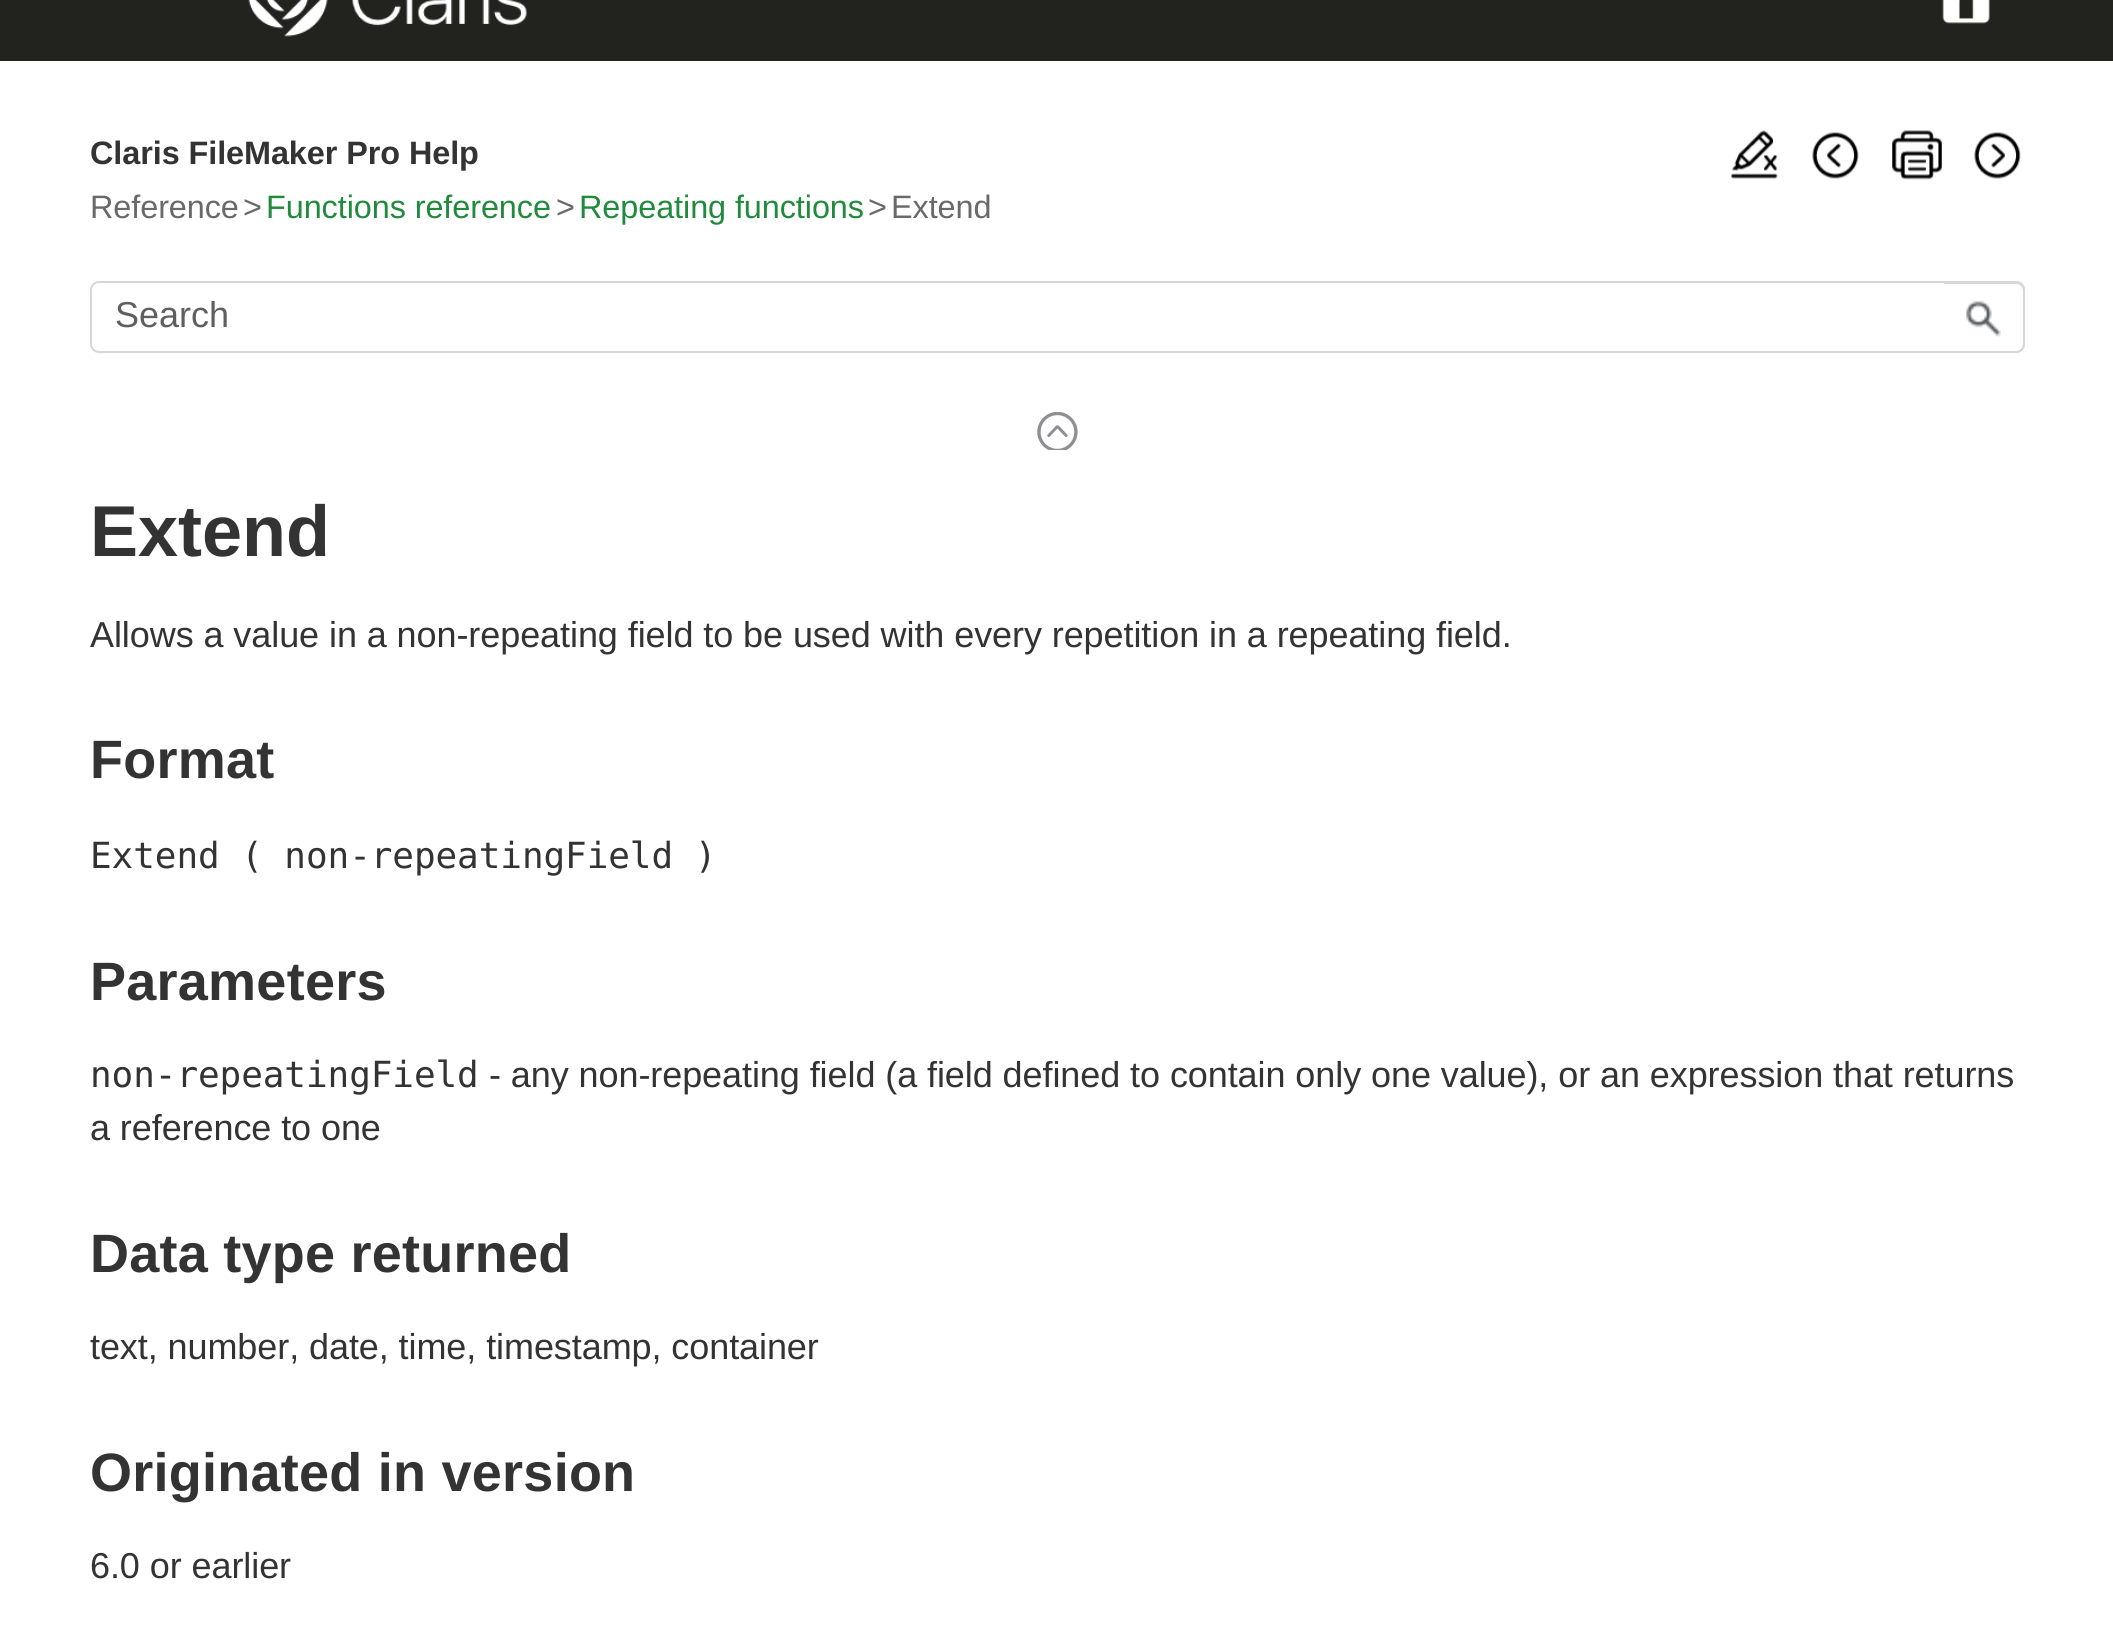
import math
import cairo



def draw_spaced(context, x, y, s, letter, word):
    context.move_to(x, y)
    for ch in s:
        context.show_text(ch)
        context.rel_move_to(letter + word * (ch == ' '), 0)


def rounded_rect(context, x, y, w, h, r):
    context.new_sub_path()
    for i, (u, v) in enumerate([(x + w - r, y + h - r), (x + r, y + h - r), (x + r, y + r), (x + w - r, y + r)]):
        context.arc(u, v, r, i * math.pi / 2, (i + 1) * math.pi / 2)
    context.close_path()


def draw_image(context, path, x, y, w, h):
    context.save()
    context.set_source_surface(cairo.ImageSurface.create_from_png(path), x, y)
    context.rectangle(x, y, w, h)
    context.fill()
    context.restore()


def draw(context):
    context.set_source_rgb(1, 1, 1)
    context.paint()
    context.set_source_rgb(34 / 255, 34 / 255, 31 / 255)
    context.rectangle(0, 0, 2113, 61)
    context.fill()
    draw_image(context, "images/1.png", 248, 0, 279, 37)
    draw_image(context, "images/2.png", 1942, 0, 48, 24)
    draw_image(context, "images/3.png", 1731, 130, 47, 49)
    draw_image(context, "images/4.png", 1812, 132, 47, 47)
    draw_image(context, "images/5.png", 1892, 130, 50, 50)
    draw_image(context, "images/6.png", 1974, 132, 47, 47)
    rounded_rect(context, 91, 282, 1933, 70, 8)
    context.set_source_rgb(214 / 255, 214 / 255, 214 / 255)
    context.stroke()
    draw_image(context, "images/7.png", 1966, 300, 35, 37)
    context.set_fill_rule(cairo.FillRule.EVEN_ODD)
    context.new_path()
    context.move_to(1944, 281)
    context.line_to(2016, 281)
    context.curve_to(2021, 281, 2025, 285, 2025, 290)
    context.line_to(2025, 344)
    context.curve_to(2025, 349, 2021, 353, 2016, 353)
    context.line_to(1944, 353)
    context.close_path()
    context.move_to(1944, 284)
    context.line_to(2016, 284)
    context.curve_to(2020, 284, 2023, 287, 2023, 290)
    context.line_to(2023, 344)
    context.curve_to(2023, 348, 2020, 351, 2016, 351)
    context.line_to(1944, 351)
    context.close_path()
    context.fill()
    draw_image(context, "images/8.png", 1037, 412, 41, 38)
    context.select_font_face("Liberation Sans", cairo.FontSlant.NORMAL, cairo.FontWeight.BOLD)
    context.set_font_size(32.4)
    context.set_source_rgb(51 / 255, 51 / 255, 51 / 255)
    draw_spaced(context, 90, 164, "Claris FileMaker Pro Help", -0.08, 0)
    context.select_font_face("Liberation Sans")
    context.set_source_rgb(105 / 255, 105 / 255, 105 / 255)
    draw_spaced(context, 90, 218, "Reference", -0.08, 0)
    draw_spaced(context, 243, 218, ">", -0.08, 0)
    context.set_source_rgb(32 / 255, 138 / 255, 61 / 255)
    draw_spaced(context, 266, 218, "Functions reference", -0.08, 0)
    context.set_source_rgb(105 / 255, 105 / 255, 105 / 255)
    draw_spaced(context, 556, 218, ">", -0.08, 0)
    context.set_source_rgb(32 / 255, 138 / 255, 61 / 255)
    draw_spaced(context, 579, 218, "Repeating functions", -0.08, 0)
    context.set_source_rgb(105 / 255, 105 / 255, 105 / 255)
    draw_spaced(context, 868, 218, ">", -0.08, 0)
    draw_spaced(context, 891, 218, "Extend", -0.08, 0)
    context.set_font_size(36)
    context.set_source_rgb(95 / 255, 95 / 255, 95 / 255)
    context.move_to(115, 327)
    context.show_text("Search")
    context.select_font_face("Liberation Sans", cairo.FontSlant.NORMAL, cairo.FontWeight.BOLD)
    context.set_font_size(72)
    context.set_source_rgb(51 / 255, 51 / 255, 51 / 255)
    context.move_to(90, 556)
    context.show_text("Extend")
    context.select_font_face("Liberation Sans")
    context.set_font_size(36)
    draw_spaced(context, 90, 647, "Allows a value in a non-repeating field to be used with every repetition in a repeating field.", -0.08, 0)
    context.select_font_face("Liberation Sans", cairo.FontSlant.NORMAL, cairo.FontWeight.BOLD)
    context.set_font_size(54)
    draw_spaced(context, 90, 778, "Format", 0.25, 0)
    context.select_font_face("DejaVu Sans Mono")
    context.set_font_size(36)
    draw_spaced(context, 90, 868, "Extend ( non-repeatingField )", -0.08, 0)
    context.select_font_face("Liberation Sans", cairo.FontSlant.NORMAL, cairo.FontWeight.BOLD)
    context.set_font_size(54)
    draw_spaced(context, 90, 1000, "Parameters", 0.25, 0)
    context.select_font_face("DejaVu Sans Mono")
    context.set_font_size(36)
    draw_spaced(context, 90, 1087, "non-repeatingField", -0.08, 0)
    context.select_font_face("Liberation Sans")
    draw_spaced(context, 489, 1087, "- any non-repeating field (a field defined to contain only one value), or an expression that returns", -0.08, 0)
    draw_spaced(context, 90, 1140, "a reference to one", -0.08, 0)
    context.select_font_face("Liberation Sans", cairo.FontSlant.NORMAL, cairo.FontWeight.BOLD)
    context.set_font_size(54)
    draw_spaced(context, 90, 1272, "Data type returned", 0.25, 0)
    context.select_font_face("Liberation Sans")
    context.set_font_size(36)
    draw_spaced(context, 90, 1359, "text, number, date, time, timestamp, container", -0.08, 0)
    context.select_font_face("Liberation Sans", cairo.FontSlant.NORMAL, cairo.FontWeight.BOLD)
    context.set_font_size(54)
    draw_spaced(context, 90, 1491, "Originated in version", 0.25, 0)
    context.select_font_face("Liberation Sans")
    context.set_font_size(36)
    draw_spaced(context, 90, 1578, "6.0 or earlier", -0.08, 0)


surface = cairo.ImageSurface(cairo.Format.RGB24, 2113, 1652)
context = cairo.Context(surface)
options = cairo.FontOptions()
options.set_hint_metrics(cairo.HintMetrics.OFF)
options.set_hint_style(cairo.HintStyle.NONE)
context.set_font_options(options)
context.set_miter_limit(4)
draw(context)
surface.write_to_png("out.png")
